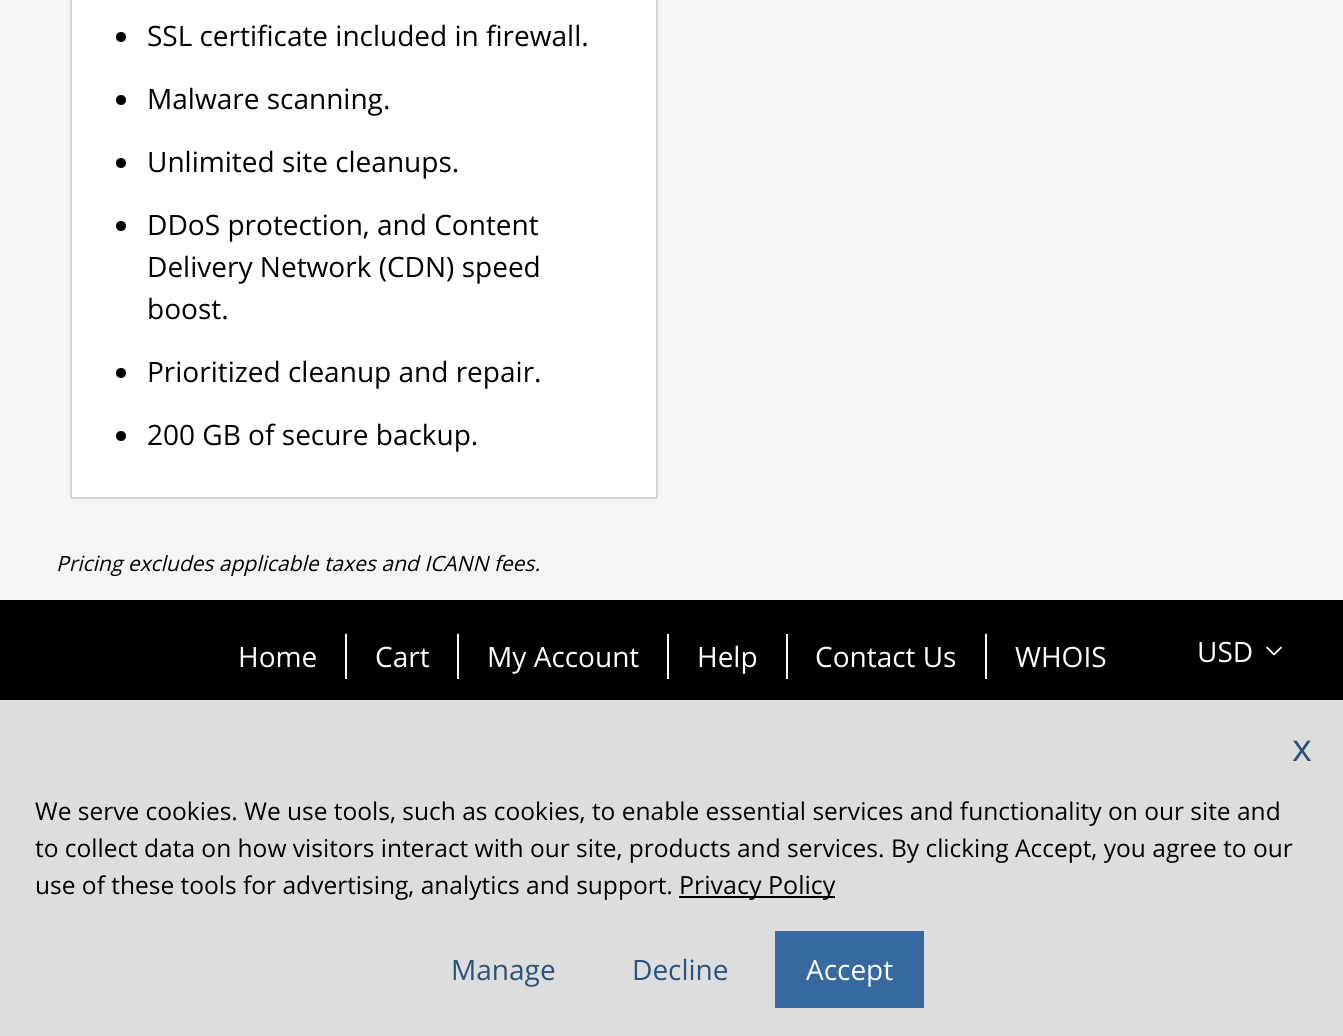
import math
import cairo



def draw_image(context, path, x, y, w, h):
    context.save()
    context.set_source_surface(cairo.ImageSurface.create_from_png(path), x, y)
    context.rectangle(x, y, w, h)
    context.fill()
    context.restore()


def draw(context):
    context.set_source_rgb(245 / 255, 245 / 255, 245 / 255)
    context.paint()
    context.set_source_rgb(1, 1, 1)
    context.rectangle(71, -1, 586, 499)
    context.fill_preserve()
    context.set_source_rgb(214 / 255, 214 / 255, 214 / 255)
    context.stroke()
    context.set_source_rgb(0, 0, 0)
    context.arc(121, 37, 5, 0, 2 * math.pi)
    context.fill()
    context.arc(121, 100, 5, 0, 2 * math.pi)
    context.fill()
    context.arc(121, 163, 5, 0, 2 * math.pi)
    context.fill()
    context.arc(121, 226, 5, 0, 2 * math.pi)
    context.fill()
    context.arc(121, 373, 5, 0, 2 * math.pi)
    context.fill()
    context.arc(121, 436, 5, 0, 2 * math.pi)
    context.fill()
    context.rectangle(0, 600, 1343, 100)
    context.fill()
    context.set_source_rgb(1, 1, 1)
    context.rectangle(345, 634, 2, 45)
    context.fill()
    context.rectangle(457, 634, 2, 45)
    context.fill()
    context.rectangle(667, 634, 2, 45)
    context.fill()
    context.rectangle(786, 634, 2, 45)
    context.fill()
    context.rectangle(985, 634, 2, 45)
    context.fill()
    draw_image(context, "images/1.png", 1266, 646, 16, 10)
    context.set_source_rgb(221 / 255, 221 / 255, 221 / 255)
    context.rectangle(0, 700, 1343, 336)
    context.fill()
    context.set_source_rgb(0, 0, 0)
    context.rectangle(679, 896, 156, 2)
    context.fill()
    context.set_source_rgb(54 / 255, 105 / 255, 159 / 255)
    context.rectangle(775, 931, 149, 77)
    context.fill()
    context.select_font_face("Open Sans")
    context.set_font_size(28)
    context.set_source_rgb(0, 0, 0)
    context.move_to(147, 46)
    context.show_text("SSL certificate included in firewall.")
    context.move_to(147, 109)
    context.show_text("Malware scanning.")
    context.move_to(147, 172)
    context.show_text("Unlimited site cleanups.")
    context.move_to(147, 235)
    context.show_text("DDoS protection, and Content")
    context.move_to(147, 277)
    context.show_text("Delivery Network (CDN) speed")
    context.move_to(147, 319)
    context.show_text("boost.")
    context.move_to(147, 382)
    context.show_text("Prioritized cleanup and repair.")
    context.move_to(147, 445)
    context.show_text("200 GB of secure backup.")
    context.select_font_face("Open Sans", cairo.FontSlant.ITALIC)
    context.set_font_size(21)
    context.move_to(56, 571)
    context.show_text("Pricing excludes applicable taxes and ICANN fees.")
    context.select_font_face("Open Sans")
    context.set_font_size(28)
    context.set_source_rgb(1, 1, 1)
    context.move_to(238, 667)
    context.show_text("Home")
    context.move_to(375, 667)
    context.show_text("Cart")
    context.move_to(487, 667)
    context.show_text("My Account")
    context.move_to(697, 667)
    context.show_text("Help")
    context.move_to(815, 667)
    context.show_text("Contact Us")
    context.move_to(1015, 667)
    context.show_text("WHOIS")
    context.move_to(1197, 662)
    context.show_text("USD")
    context.set_font_size(38)
    context.set_source_rgb(42 / 255, 82 / 255, 125 / 255)
    context.move_to(1292, 761)
    context.show_text("x")
    context.set_font_size(24.5)
    context.set_source_rgb(0, 0, 0)
    context.move_to(35, 820)
    context.show_text("We serve cookies. We use tools, such as cookies, to enable essential services and functionality on our site and")
    context.move_to(35, 857)
    context.show_text("to collect data on how visitors interact with our site, products and services. By clicking Accept, you agree to our")
    context.move_to(35, 894)
    context.show_text("use of these tools for advertising, analytics and support.")
    context.set_font_size(25)
    context.move_to(679, 894)
    context.show_text("Privacy Policy")
    context.set_font_size(28)
    context.set_source_rgb(42 / 255, 82 / 255, 125 / 255)
    context.move_to(451, 980)
    context.show_text("Manage")
    context.move_to(632, 980)
    context.show_text("Decline")
    context.set_source_rgb(1, 1, 1)
    context.move_to(806, 980)
    context.show_text("Accept")


surface = cairo.ImageSurface(cairo.Format.RGB24, 1343, 1036)
context = cairo.Context(surface)
options = cairo.FontOptions()
options.set_hint_metrics(cairo.HintMetrics.OFF)
options.set_hint_style(cairo.HintStyle.NONE)
context.set_font_options(options)
context.set_miter_limit(4)
draw(context)
surface.write_to_png("out.png")
